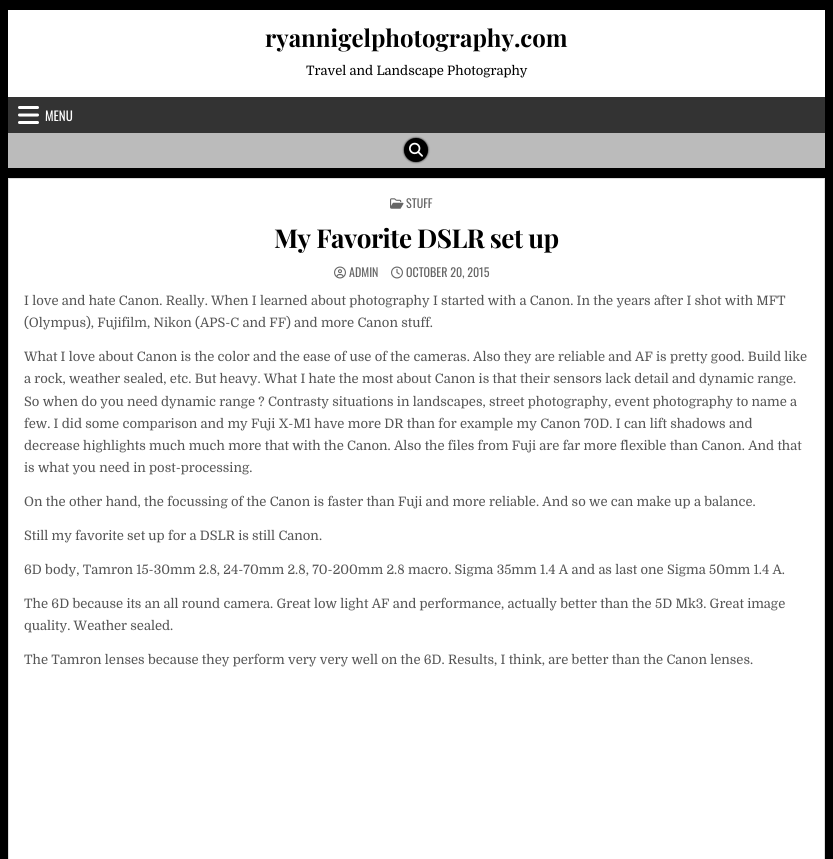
import math
import cairo



def draw_spaced(context, x, y, s, letter, word):
    context.move_to(x, y)
    for ch in s:
        context.show_text(ch)
        context.rel_move_to(letter + word * (ch == ' '), 0)


def rounded_rect(context, x, y, w, h, r):
    context.new_sub_path()
    for i, (u, v) in enumerate([(x + w - r, y + h - r), (x + r, y + h - r), (x + r, y + r), (x + w - r, y + r)]):
        context.arc(u, v, r, i * math.pi / 2, (i + 1) * math.pi / 2)
    context.close_path()


def draw_shadow(context, x, y, w, h, r, blur, alpha):
    context.push_group_with_content(cairo.Content.ALPHA)
    context.set_operator(cairo.Operator.SOURCE)
    for i in range(15, -16, -2):
        e = blur * i / 6
        if min(w, h) + 2 * e > 0:
            context.set_source_rgba(0, 0, 0, alpha * math.erfc((i - 1) / 8.5) / 2)
            rounded_rect(context, x - e, y - e, w + 2 * e, h + 2 * e, max(0, min(r + e + blur * .6, min(w, h) / 2 + e)))
            context.fill()
    context.mask(context.pop_group())


def draw_image(context, path, x, y, w, h):
    context.save()
    context.set_source_surface(cairo.ImageSurface.create_from_png(path), x, y)
    context.rectangle(x, y, w, h)
    context.fill()
    context.restore()


def draw(context):
    context.set_source_rgb(0, 0, 0)
    context.paint()
    context.set_source_rgb(1, 1, 1)
    context.rectangle(8, 10, 817, 87)
    context.fill()
    context.set_source_rgb(51 / 255, 51 / 255, 51 / 255)
    context.rectangle(8, 97, 817, 36)
    context.fill()
    draw_image(context, "images/1.png", 18, 106, 21, 18)
    context.set_source_rgb(187 / 255, 187 / 255, 187 / 255)
    context.rectangle(8, 133, 817, 35)
    context.fill()
    context.set_source_rgb(0, 0, 0)
    draw_shadow(context, 404, 138, 24, 24, 12, 1, 1)
    context.set_source_rgb(0, 0, 0)
    context.arc(416, 150, 12, 0, 2 * math.pi)
    context.fill()
    draw_image(context, "images/2.png", 409, 142, 14, 15)
    context.set_source_rgb(1, 1, 1)
    context.rectangle(8.5, 178.5, 816, 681)
    context.fill_preserve()
    context.set_source_rgb(221 / 255, 221 / 255, 221 / 255)
    context.set_line_width(1)
    context.stroke()
    draw_image(context, "images/3.png", 390, 198, 14, 11)
    draw_image(context, "images/4.png", 334, 266, 12, 13)
    draw_image(context, "images/5.png", 391, 266, 12, 13)
    context.select_font_face("Playfair Display", cairo.FontSlant.NORMAL, cairo.FontWeight.BOLD)
    context.set_font_size(24)
    context.set_source_rgb(0, 0, 0)
    context.move_to(265, 47)
    context.show_text("ryannigelphotography.com")
    context.select_font_face("Domine")
    context.set_font_size(13)
    context.move_to(306, 75)
    context.show_text("Travel and Landscape Photography")
    context.select_font_face("Oswald")
    context.set_source_rgb(1, 1, 1)
    context.move_to(45, 121)
    context.show_text("MENU")
    context.set_font_size(12)
    context.set_source_rgb(102 / 255, 102 / 255, 102 / 255)
    context.move_to(406, 208)
    context.show_text("STUFF")
    context.select_font_face("Playfair Display", cairo.FontSlant.NORMAL, cairo.FontWeight.BOLD)
    context.set_font_size(26)
    context.set_source_rgb(0, 0, 0)
    draw_spaced(context, 274, 248, "My Favorite DSLR set up", -0.5, 0)
    context.select_font_face("Oswald")
    context.set_font_size(12)
    context.set_source_rgb(102 / 255, 102 / 255, 102 / 255)
    context.move_to(349, 277)
    context.show_text("ADMIN")
    context.move_to(406, 277)
    context.show_text("OCTOBER 20, 2015")
    context.select_font_face("Domine")
    context.set_font_size(13)
    context.set_source_rgb(85 / 255, 85 / 255, 85 / 255)
    context.move_to(24, 305)
    context.show_text("I love and hate Canon. Really. When I learned about photography I started with a Canon. In the years after I shot with MFT")
    context.move_to(24, 327)
    context.show_text("(Olympus), Fujifilm, Nikon (APS-C and FF) and more Canon stuff.")
    context.move_to(24, 361)
    context.show_text("What I love about Canon is the color and the ease of use of the cameras. Also they are reliable and AF is pretty good. Build like")
    context.move_to(24, 383)
    context.show_text("a rock, weather sealed, etc. But heavy. What I hate the most about Canon is that their sensors lack detail and dynamic range.")
    context.move_to(24, 406)
    context.show_text("So when do you need dynamic range ? Contrasty situations in landscapes, street photography, event photography to name a")
    context.move_to(24, 428)
    context.show_text("few. I did some comparison and my Fuji X-M1 have more DR than for example my Canon 70D. I can lift shadows and")
    context.move_to(24, 450)
    context.show_text("decrease highlights much much more that with the Canon. Also the files from Fuji are far more flexible than Canon. And that")
    context.move_to(24, 472)
    context.show_text("is what you need in post-processing.")
    context.move_to(24, 506)
    context.show_text("On the other hand, the focussing of the Canon is faster than Fuji and more reliable. And so we can make up a balance.")
    context.move_to(24, 540)
    context.show_text("Still my favorite set up for a DSLR is still Canon.")
    context.move_to(24, 574)
    context.show_text("6D body, Tamron 15-30mm 2.8, 24-70mm 2.8, 70-200mm 2.8 macro. Sigma 35mm 1.4 A and as last one Sigma 50mm 1.4 A.")
    context.move_to(24, 608)
    context.show_text("The 6D because its an all round camera. Great low light AF and performance, actually better than the 5D Mk3. Great image")
    context.move_to(24, 630)
    context.show_text("quality. Weather sealed.")
    context.move_to(24, 664)
    context.show_text("The Tamron lenses because they perform very very well on the 6D. Results, I think, are better than the Canon lenses.")


surface = cairo.ImageSurface(cairo.Format.RGB24, 833, 859)
context = cairo.Context(surface)
options = cairo.FontOptions()
options.set_hint_metrics(cairo.HintMetrics.OFF)
options.set_hint_style(cairo.HintStyle.NONE)
context.set_font_options(options)
context.set_miter_limit(4)
draw(context)
surface.write_to_png("out.png")
